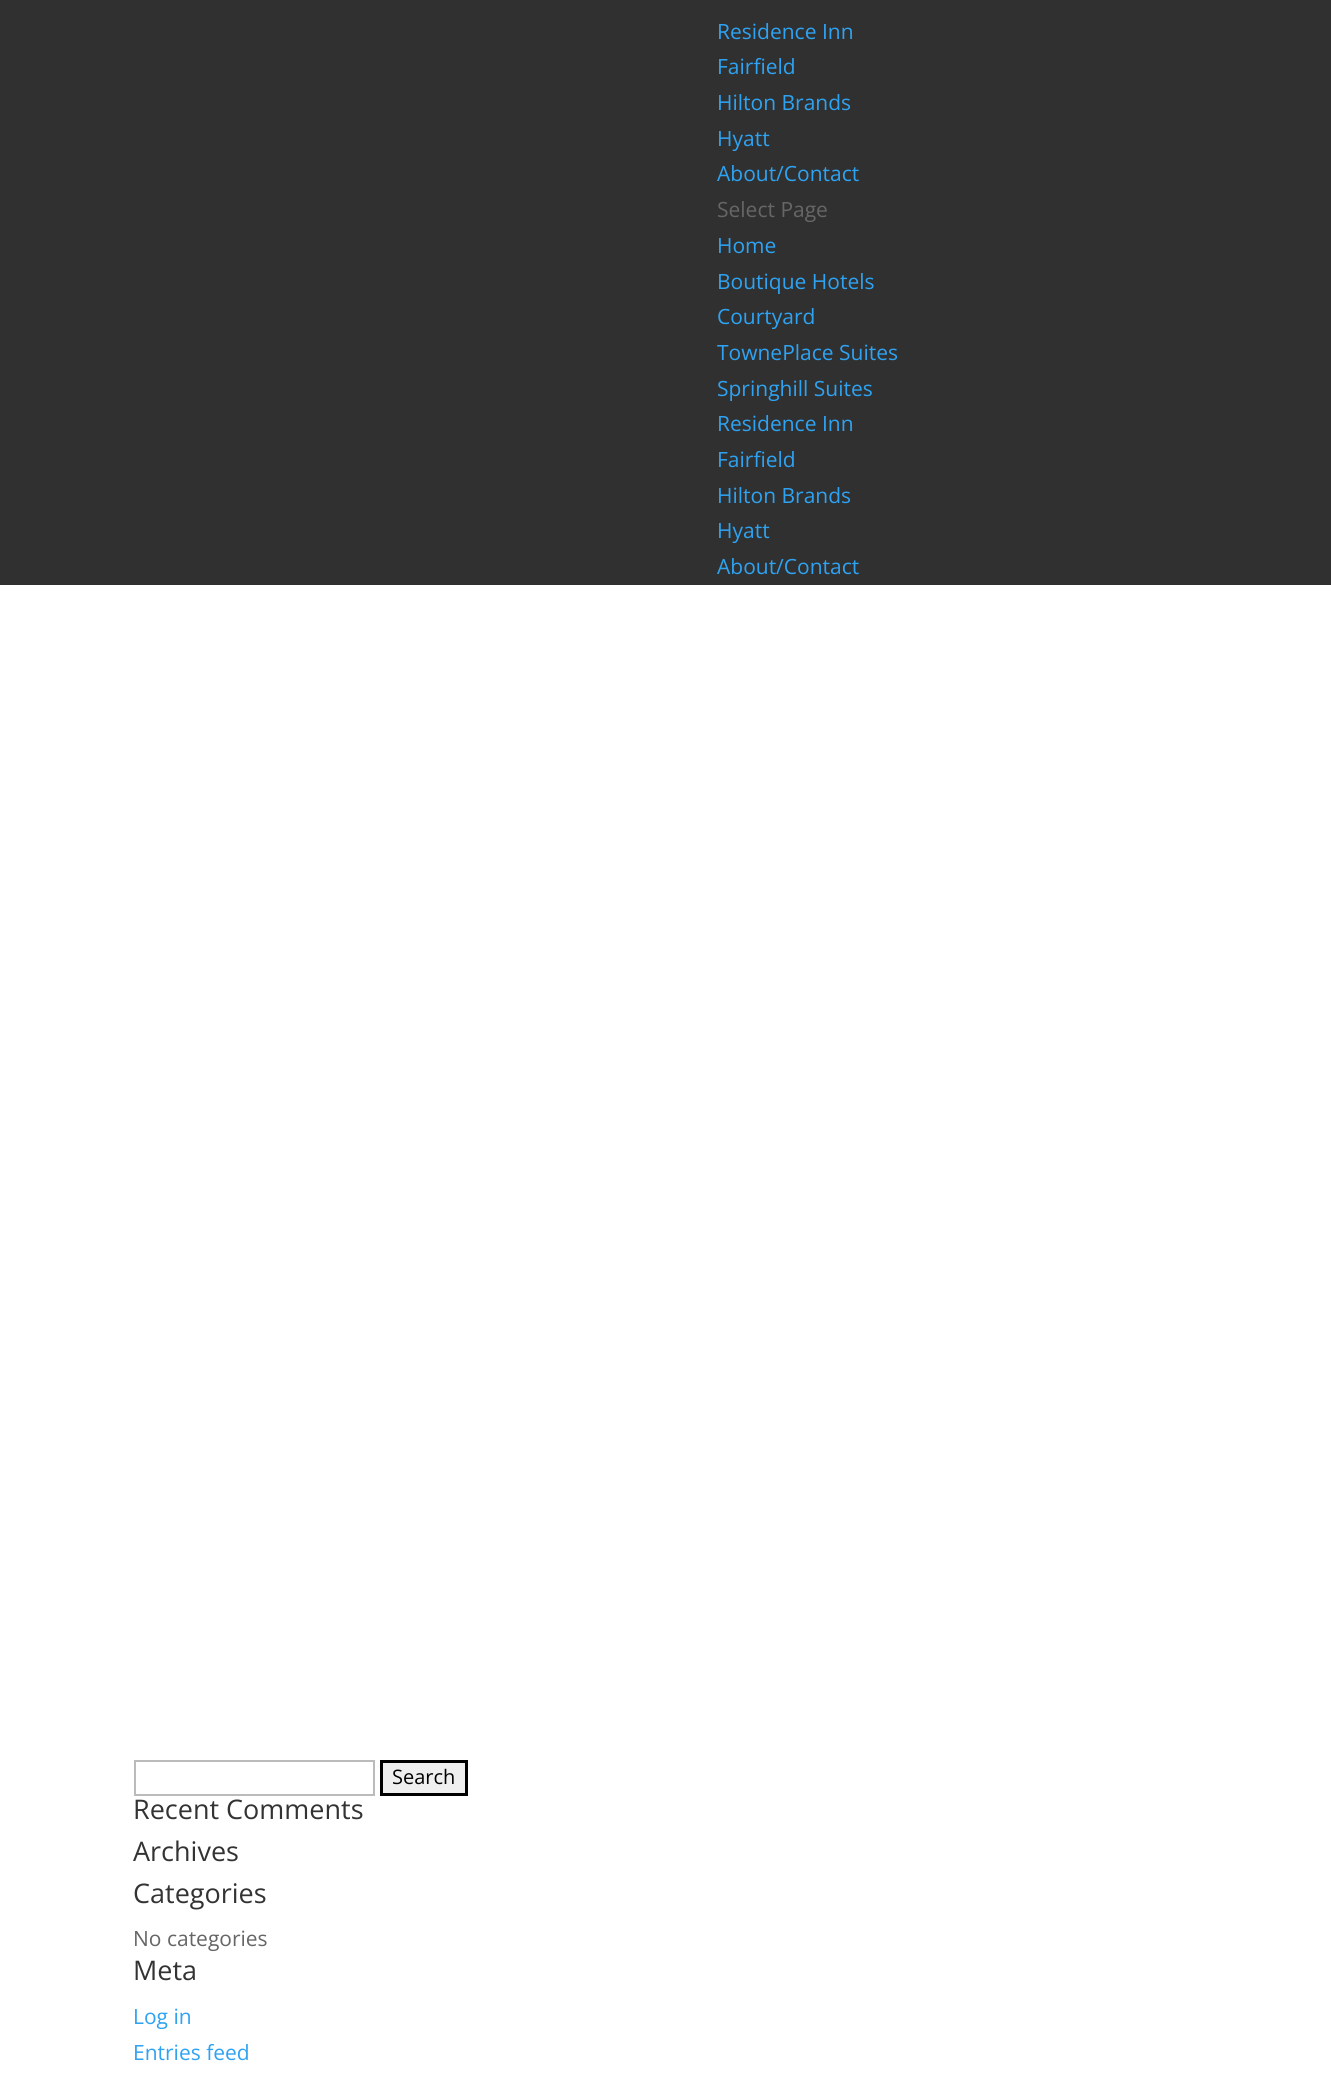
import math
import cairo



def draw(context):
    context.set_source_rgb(48 / 255, 48 / 255, 48 / 255)
    context.paint()
    context.set_source_rgb(1, 1, 1)
    context.rectangle(0, 585, 1331, 1502)
    context.fill()
    context.rectangle(135, 1761, 239, 34)
    context.set_source_rgb(187 / 255, 187 / 255, 187 / 255)
    context.stroke()
    context.set_source_rgb(239 / 255, 239 / 255, 239 / 255)
    context.rectangle(381.5, 1761.5, 85, 33)
    context.fill_preserve()
    context.set_source_rgb(0, 0, 0)
    context.set_line_width(3)
    context.stroke()
    context.select_font_face("Open Sans")
    context.set_font_size(21)
    context.set_source_rgb(46 / 255, 163 / 255, 242 / 255)
    context.move_to(717, 39)
    context.show_text("Residence Inn")
    context.move_to(717, 74)
    context.show_text("Fairfield")
    context.move_to(717, 110)
    context.show_text("Hilton Brands")
    context.move_to(717, 146)
    context.show_text("Hyatt")
    context.move_to(717, 181)
    context.show_text("About/Contact")
    context.set_source_rgb(102 / 255, 102 / 255, 102 / 255)
    context.move_to(717, 217)
    context.show_text("Select Page")
    context.set_source_rgb(46 / 255, 163 / 255, 242 / 255)
    context.move_to(717, 253)
    context.show_text("Home")
    context.move_to(717, 289)
    context.show_text("Boutique Hotels")
    context.move_to(717, 324)
    context.show_text("Courtyard")
    context.move_to(717, 360)
    context.show_text("TownePlace Suites")
    context.move_to(717, 396)
    context.show_text("Springhill Suites")
    context.move_to(717, 431)
    context.show_text("Residence Inn")
    context.move_to(717, 467)
    context.show_text("Fairfield")
    context.move_to(717, 503)
    context.show_text("Hilton Brands")
    context.move_to(717, 538)
    context.show_text("Hyatt")
    context.move_to(717, 574)
    context.show_text("About/Contact")
    context.set_font_size(20)
    context.set_source_rgb(0, 0, 0)
    context.move_to(392, 1784)
    context.show_text("Search")
    context.set_font_size(27)
    context.set_source_rgb(51 / 255, 51 / 255, 51 / 255)
    context.move_to(133, 1819)
    context.show_text("Recent Comments")
    context.move_to(133, 1861)
    context.show_text("Archives")
    context.move_to(133, 1903)
    context.show_text("Categories")
    context.set_font_size(21)
    context.set_source_rgb(102 / 255, 102 / 255, 102 / 255)
    context.move_to(133, 1946)
    context.show_text("No categories")
    context.set_font_size(27)
    context.set_source_rgb(51 / 255, 51 / 255, 51 / 255)
    context.move_to(133, 1980)
    context.show_text("Meta")
    context.set_font_size(21)
    context.set_source_rgb(46 / 255, 163 / 255, 242 / 255)
    context.move_to(133, 2024)
    context.show_text("Log in")
    context.move_to(133, 2060)
    context.show_text("Entries feed")


surface = cairo.ImageSurface(cairo.Format.RGB24, 1331, 2087)
context = cairo.Context(surface)
options = cairo.FontOptions()
options.set_hint_metrics(cairo.HintMetrics.OFF)
options.set_hint_style(cairo.HintStyle.NONE)
context.set_font_options(options)
context.set_miter_limit(4)
draw(context)
surface.write_to_png("out.png")
